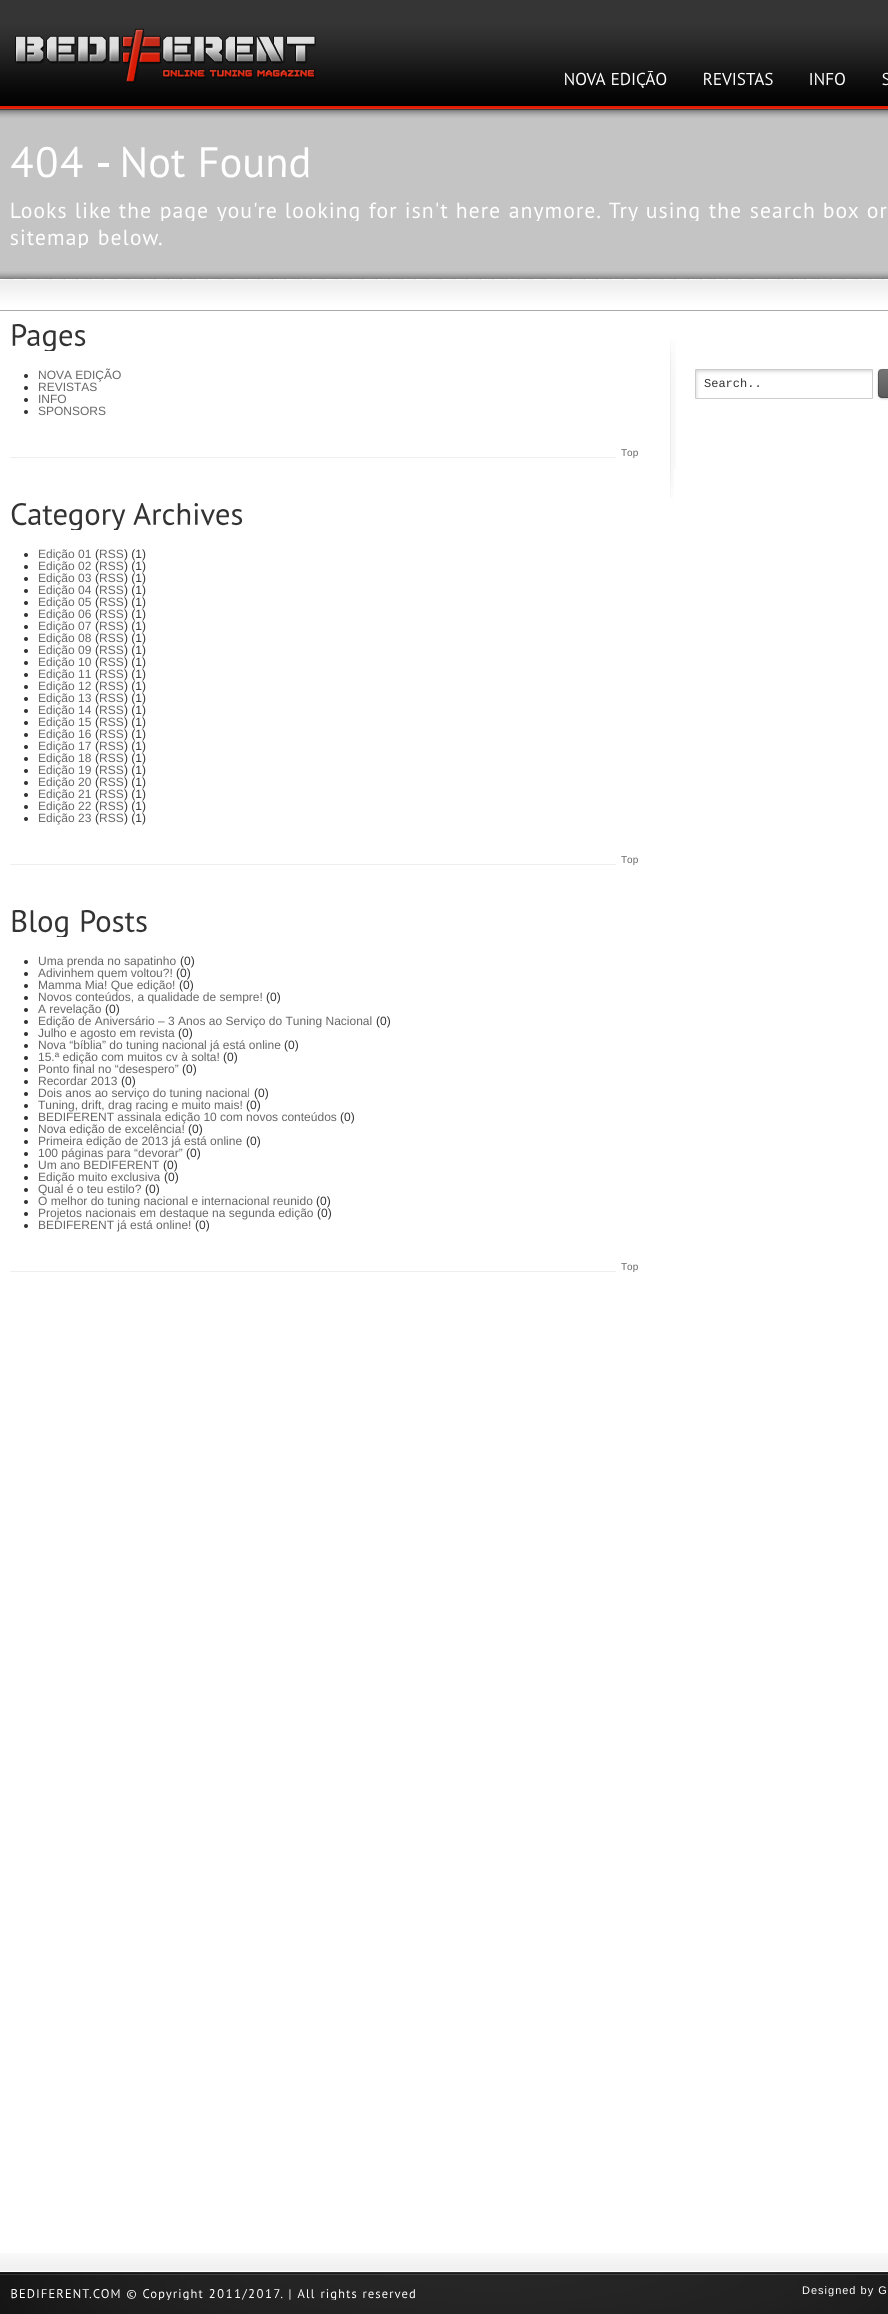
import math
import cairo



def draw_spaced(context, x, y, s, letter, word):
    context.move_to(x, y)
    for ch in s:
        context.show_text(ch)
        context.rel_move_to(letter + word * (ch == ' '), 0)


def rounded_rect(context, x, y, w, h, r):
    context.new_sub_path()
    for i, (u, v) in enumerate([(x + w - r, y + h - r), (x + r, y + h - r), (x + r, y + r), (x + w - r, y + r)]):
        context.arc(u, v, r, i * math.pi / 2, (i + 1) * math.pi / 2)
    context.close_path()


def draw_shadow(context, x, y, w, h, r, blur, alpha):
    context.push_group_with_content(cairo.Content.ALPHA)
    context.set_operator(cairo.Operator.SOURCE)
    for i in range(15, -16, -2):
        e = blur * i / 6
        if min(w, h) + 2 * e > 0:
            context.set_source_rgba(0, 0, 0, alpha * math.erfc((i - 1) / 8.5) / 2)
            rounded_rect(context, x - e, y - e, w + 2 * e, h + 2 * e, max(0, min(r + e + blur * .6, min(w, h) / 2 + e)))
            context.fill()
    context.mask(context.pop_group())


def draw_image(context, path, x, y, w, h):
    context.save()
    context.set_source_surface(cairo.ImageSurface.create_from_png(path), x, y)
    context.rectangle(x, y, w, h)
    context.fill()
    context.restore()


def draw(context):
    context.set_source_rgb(1, 1, 1)
    context.paint()
    context.set_source_rgb(59 / 255, 59 / 255, 59 / 255)
    context.rectangle(0, 109, 888, 1)
    context.fill()
    draw_image(context, "images/1.png", 0, 0, 888, 109)
    draw_image(context, "images/2.png", 15, 28, 301, 55)
    draw_image(context, "images/3.png", 565, 72, 41, 14)
    draw_image(context, "images/4.png", 612, 71, 55, 17)
    draw_image(context, "images/5.png", 704, 72, 69, 14)
    draw_image(context, "images/6.png", 810, 72, 35, 14)
    draw_image(context, "images/7.png", 882, 72, 6, 14)
    context.set_source_rgb(196 / 255, 196 / 255, 196 / 255)
    context.rectangle(0, 110, 888, 169)
    context.fill()
    draw_image(context, "images/8.png", 0, 110, 888, 8)
    draw_image(context, "images/9.png", 11, 146, 72, 32)
    context.set_source_rgb(1, 1, 1)
    context.rectangle(98, 163, 11, 4)
    context.fill()
    draw_image(context, "images/10.png", 123, 146, 62, 32)
    draw_image(context, "images/11.png", 201, 147, 108, 31)
    draw_image(context, "images/12.png", 11, 202, 55, 17)
    draw_image(context, "images/13.png", 76, 202, 34, 17)
    draw_image(context, "images/14.png", 119, 202, 31, 17)
    draw_image(context, "images/15.png", 161, 206, 46, 15)
    draw_image(context, "images/16.png", 217, 202, 59, 19)
    draw_image(context, "images/17.png", 286, 202, 73, 19)
    draw_image(context, "images/18.png", 369, 202, 28, 17)
    draw_image(context, "images/19.png", 406, 202, 42, 17)
    draw_image(context, "images/20.png", 457, 202, 42, 17)
    draw_image(context, "images/21.png", 509, 206, 91, 15)
    draw_image(context, "images/22.png", 609, 202, 29, 19)
    draw_image(context, "images/23.png", 647, 202, 52, 19)
    draw_image(context, "images/14.png", 709, 202, 31, 17)
    draw_image(context, "images/24.png", 750, 202, 64, 17)
    draw_image(context, "images/25.png", 824, 202, 34, 17)
    draw_image(context, "images/26.png", 867, 206, 20, 13)
    draw_image(context, "images/27.png", 10, 229, 79, 19)
    draw_image(context, "images/28.png", 99, 229, 63, 17)
    draw_image(context, "images/29.png", 0, 271, 888, 8)
    draw_image(context, "images/30.png", 0, 279, 888, 32)
    draw_image(context, "images/31.png", 12, 324, 74, 27)
    context.set_source_rgb(51 / 255, 51 / 255, 51 / 255)
    context.arc(26, 376, 2, 0, 2 * math.pi)
    context.fill()
    context.arc(26, 388, 2, 0, 2 * math.pi)
    context.fill()
    context.arc(26, 400, 2, 0, 2 * math.pi)
    context.fill()
    context.arc(26, 412, 2, 0, 2 * math.pi)
    context.fill()
    context.set_source_rgb(238 / 255, 238 / 255, 238 / 255)
    context.rectangle(10, 457, 606, 1)
    context.fill()
    draw_image(context, "images/32.png", 11, 503, 115, 27)
    draw_image(context, "images/33.png", 133, 503, 110, 23)
    context.set_source_rgb(51 / 255, 51 / 255, 51 / 255)
    context.arc(26, 555, 2, 0, 2 * math.pi)
    context.fill()
    context.arc(26, 567, 2, 0, 2 * math.pi)
    context.fill()
    context.arc(26, 579, 2, 0, 2 * math.pi)
    context.fill()
    context.arc(26, 591, 2, 0, 2 * math.pi)
    context.fill()
    context.arc(26, 603, 2, 0, 2 * math.pi)
    context.fill()
    context.arc(26, 615, 2, 0, 2 * math.pi)
    context.fill()
    context.arc(26, 627, 2, 0, 2 * math.pi)
    context.fill()
    context.arc(26, 639, 2, 0, 2 * math.pi)
    context.fill()
    context.arc(26, 651, 2, 0, 2 * math.pi)
    context.fill()
    context.arc(26, 663, 2, 0, 2 * math.pi)
    context.fill()
    context.arc(26, 675, 2, 0, 2 * math.pi)
    context.fill()
    context.arc(26, 687, 2, 0, 2 * math.pi)
    context.fill()
    context.arc(26, 699, 2, 0, 2 * math.pi)
    context.fill()
    context.arc(26, 711, 2, 0, 2 * math.pi)
    context.fill()
    context.arc(26, 723, 2, 0, 2 * math.pi)
    context.fill()
    context.arc(26, 735, 2, 0, 2 * math.pi)
    context.fill()
    context.arc(26, 747, 2, 0, 2 * math.pi)
    context.fill()
    context.arc(26, 759, 2, 0, 2 * math.pi)
    context.fill()
    context.arc(26, 771, 2, 0, 2 * math.pi)
    context.fill()
    context.arc(26, 783, 2, 0, 2 * math.pi)
    context.fill()
    context.arc(26, 795, 2, 0, 2 * math.pi)
    context.fill()
    context.arc(26, 807, 2, 0, 2 * math.pi)
    context.fill()
    context.arc(26, 819, 2, 0, 2 * math.pi)
    context.fill()
    context.set_source_rgb(238 / 255, 238 / 255, 238 / 255)
    context.rectangle(10, 864, 606, 1)
    context.fill()
    draw_image(context, "images/34.png", 12, 910, 56, 27)
    draw_image(context, "images/35.png", 81, 910, 66, 23)
    context.set_source_rgb(51 / 255, 51 / 255, 51 / 255)
    context.arc(26, 962, 2, 0, 2 * math.pi)
    context.fill()
    context.arc(26, 974, 2, 0, 2 * math.pi)
    context.fill()
    context.arc(26, 986, 2, 0, 2 * math.pi)
    context.fill()
    context.arc(26, 998, 2, 0, 2 * math.pi)
    context.fill()
    context.arc(26, 1010, 2, 0, 2 * math.pi)
    context.fill()
    context.arc(26, 1022, 2, 0, 2 * math.pi)
    context.fill()
    context.arc(26, 1034, 2, 0, 2 * math.pi)
    context.fill()
    context.arc(26, 1046, 2, 0, 2 * math.pi)
    context.fill()
    context.arc(26, 1058, 2, 0, 2 * math.pi)
    context.fill()
    context.arc(26, 1070, 2, 0, 2 * math.pi)
    context.fill()
    context.arc(26, 1082, 2, 0, 2 * math.pi)
    context.fill()
    context.arc(26, 1094, 2, 0, 2 * math.pi)
    context.fill()
    context.arc(26, 1106, 2, 0, 2 * math.pi)
    context.fill()
    context.arc(26, 1118, 2, 0, 2 * math.pi)
    context.fill()
    context.arc(26, 1130, 2, 0, 2 * math.pi)
    context.fill()
    context.arc(26, 1142, 2, 0, 2 * math.pi)
    context.fill()
    context.arc(26, 1154, 2, 0, 2 * math.pi)
    context.fill()
    context.arc(26, 1166, 2, 0, 2 * math.pi)
    context.fill()
    context.arc(26, 1178, 2, 0, 2 * math.pi)
    context.fill()
    context.arc(26, 1190, 2, 0, 2 * math.pi)
    context.fill()
    context.arc(26, 1202, 2, 0, 2 * math.pi)
    context.fill()
    context.arc(26, 1214, 2, 0, 2 * math.pi)
    context.fill()
    context.arc(26, 1226, 2, 0, 2 * math.pi)
    context.fill()
    context.set_source_rgb(238 / 255, 238 / 255, 238 / 255)
    context.rectangle(10, 1271, 606, 1)
    context.fill()
    draw_image(context, "images/36.png", 670, 340, 6, 129)
    draw_image(context, "images/37.png", 696, 370, 176, 28)
    rounded_rect(context, 695.5, 369.5, 177, 29, 0.5)
    context.set_source_rgb(204 / 255, 204 / 255, 204 / 255)
    context.set_line_width(1)
    context.stroke()
    context.set_source_rgb(0, 0, 0)
    draw_shadow(context, 878, 370, 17, 29, 4, 1, 0.2)
    context.set_source_rgb(102 / 255, 102 / 255, 102 / 255)
    rounded_rect(context, 878, 369, 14, 29, 4)
    context.fill()
    gradient = cairo.LinearGradient(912, 370, 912, 343)
    gradient.add_color_stop_rgba(0, 0, 0, 0, 0.1)
    gradient.add_color_stop_rgba(1, 1, 1, 1, 0.1)
    context.set_source(gradient)
    context.rectangle(878, 369, 10, 1)
    context.fill()
    gradient = cairo.LinearGradient(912, 397, 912, 370)
    gradient.add_color_stop_rgba(0, 0, 0, 0, 0.1)
    gradient.add_color_stop_rgba(1, 1, 1, 1, 0.1)
    context.set_source(gradient)
    context.rectangle(878, 370, 10, 27)
    context.fill()
    gradient = cairo.LinearGradient(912, 424, 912, 397)
    gradient.add_color_stop_rgba(0, 0, 0, 0, 0.1)
    gradient.add_color_stop_rgba(1, 1, 1, 1, 0.1)
    context.set_source(gradient)
    context.rectangle(878, 397, 10, 1)
    context.fill()
    context.new_path()
    context.move_to(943.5, 396.5)
    context.line_to(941.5, 397.5)
    context.line_to(881.5, 397.5)
    context.line_to(879.5, 396.5)
    context.set_source_rgba(0, 0, 0, 0.4)
    context.stroke()
    context.new_path()
    context.move_to(879.5, 396.5)
    context.curve_to(877.5, 394.5, 878.5, 386, 878.5, 383.5)
    context.curve_to(878.5, 368, 876, 369.5, 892, 369.5)
    context.line_to(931, 369.5)
    context.curve_to(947, 369.5, 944.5, 368, 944.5, 383.5)
    context.curve_to(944.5, 386, 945.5, 394.5, 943.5, 396.5)
    context.set_source_rgba(0, 0, 0, 0.2)
    context.stroke()
    context.set_source_rgba(1, 1, 1, 0.2)
    context.rectangle(879, 369, 9, 1)
    context.fill()
    draw_image(context, "images/38.png", 670, 469, 4, 29)
    draw_image(context, "images/39.png", 0, 2253, 888, 18)
    context.set_source_rgb(0, 0, 0)
    context.rectangle(0, 2272, 888, 42)
    context.fill()
    draw_image(context, "images/40.png", 0, 2272, 888, 42)
    draw_image(context, "images/41.png", 0, 2273, 888, 41)
    draw_image(context, "images/42.png", 11, 2289, 109, 10)
    draw_image(context, "images/43.png", 127, 2290, 9, 9)
    draw_image(context, "images/44.png", 143, 2289, 60, 11)
    draw_image(context, "images/45.png", 209, 2289, 74, 11)
    draw_image(context, "images/46.png", 289, 2289, 2, 11)
    draw_image(context, "images/47.png", 297, 2289, 18, 10)
    draw_image(context, "images/48.png", 321, 2289, 36, 11)
    draw_image(context, "images/49.png", 363, 2289, 52, 10)
    context.select_font_face("Liberation Sans")
    context.set_font_size(12)
    context.set_source_rgb(102 / 255, 102 / 255, 102 / 255)
    context.move_to(38, 379)
    context.show_text("NOVA EDIÇÃO")
    context.move_to(38, 391)
    context.show_text("REVISTAS")
    context.move_to(38, 403)
    context.show_text("INFO")
    context.move_to(38, 415)
    context.show_text("SPONSORS")
    context.set_font_size(10)
    context.move_to(621, 456)
    context.show_text("Top")
    context.set_font_size(12)
    context.move_to(38, 558)
    context.show_text("Edição 01")
    context.set_source_rgb(51 / 255, 51 / 255, 51 / 255)
    context.move_to(95, 558)
    context.show_text("(")
    context.set_source_rgb(102 / 255, 102 / 255, 102 / 255)
    context.move_to(99, 558)
    context.show_text("RSS")
    context.set_source_rgb(51 / 255, 51 / 255, 51 / 255)
    context.move_to(124, 558)
    context.show_text(") (1)")
    context.set_source_rgb(102 / 255, 102 / 255, 102 / 255)
    context.move_to(38, 570)
    context.show_text("Edição 02")
    context.set_source_rgb(51 / 255, 51 / 255, 51 / 255)
    context.move_to(95, 570)
    context.show_text("(")
    context.set_source_rgb(102 / 255, 102 / 255, 102 / 255)
    context.move_to(99, 570)
    context.show_text("RSS")
    context.set_source_rgb(51 / 255, 51 / 255, 51 / 255)
    context.move_to(124, 570)
    context.show_text(") (1)")
    context.set_source_rgb(102 / 255, 102 / 255, 102 / 255)
    context.move_to(38, 582)
    context.show_text("Edição 03")
    context.set_source_rgb(51 / 255, 51 / 255, 51 / 255)
    context.move_to(95, 582)
    context.show_text("(")
    context.set_source_rgb(102 / 255, 102 / 255, 102 / 255)
    context.move_to(99, 582)
    context.show_text("RSS")
    context.set_source_rgb(51 / 255, 51 / 255, 51 / 255)
    context.move_to(124, 582)
    context.show_text(") (1)")
    context.set_source_rgb(102 / 255, 102 / 255, 102 / 255)
    context.move_to(38, 594)
    context.show_text("Edição 04")
    context.set_source_rgb(51 / 255, 51 / 255, 51 / 255)
    context.move_to(95, 594)
    context.show_text("(")
    context.set_source_rgb(102 / 255, 102 / 255, 102 / 255)
    context.move_to(99, 594)
    context.show_text("RSS")
    context.set_source_rgb(51 / 255, 51 / 255, 51 / 255)
    context.move_to(124, 594)
    context.show_text(") (1)")
    context.set_source_rgb(102 / 255, 102 / 255, 102 / 255)
    context.move_to(38, 606)
    context.show_text("Edição 05")
    context.set_source_rgb(51 / 255, 51 / 255, 51 / 255)
    context.move_to(95, 606)
    context.show_text("(")
    context.set_source_rgb(102 / 255, 102 / 255, 102 / 255)
    context.move_to(99, 606)
    context.show_text("RSS")
    context.set_source_rgb(51 / 255, 51 / 255, 51 / 255)
    context.move_to(124, 606)
    context.show_text(") (1)")
    context.set_source_rgb(102 / 255, 102 / 255, 102 / 255)
    context.move_to(38, 618)
    context.show_text("Edição 06")
    context.set_source_rgb(51 / 255, 51 / 255, 51 / 255)
    context.move_to(95, 618)
    context.show_text("(")
    context.set_source_rgb(102 / 255, 102 / 255, 102 / 255)
    context.move_to(99, 618)
    context.show_text("RSS")
    context.set_source_rgb(51 / 255, 51 / 255, 51 / 255)
    context.move_to(124, 618)
    context.show_text(") (1)")
    context.set_source_rgb(102 / 255, 102 / 255, 102 / 255)
    context.move_to(38, 630)
    context.show_text("Edição 07")
    context.set_source_rgb(51 / 255, 51 / 255, 51 / 255)
    context.move_to(95, 630)
    context.show_text("(")
    context.set_source_rgb(102 / 255, 102 / 255, 102 / 255)
    context.move_to(99, 630)
    context.show_text("RSS")
    context.set_source_rgb(51 / 255, 51 / 255, 51 / 255)
    context.move_to(124, 630)
    context.show_text(") (1)")
    context.set_source_rgb(102 / 255, 102 / 255, 102 / 255)
    context.move_to(38, 642)
    context.show_text("Edição 08")
    context.set_source_rgb(51 / 255, 51 / 255, 51 / 255)
    context.move_to(95, 642)
    context.show_text("(")
    context.set_source_rgb(102 / 255, 102 / 255, 102 / 255)
    context.move_to(99, 642)
    context.show_text("RSS")
    context.set_source_rgb(51 / 255, 51 / 255, 51 / 255)
    context.move_to(124, 642)
    context.show_text(") (1)")
    context.set_source_rgb(102 / 255, 102 / 255, 102 / 255)
    context.move_to(38, 654)
    context.show_text("Edição 09")
    context.set_source_rgb(51 / 255, 51 / 255, 51 / 255)
    context.move_to(95, 654)
    context.show_text("(")
    context.set_source_rgb(102 / 255, 102 / 255, 102 / 255)
    context.move_to(99, 654)
    context.show_text("RSS")
    context.set_source_rgb(51 / 255, 51 / 255, 51 / 255)
    context.move_to(124, 654)
    context.show_text(") (1)")
    context.set_source_rgb(102 / 255, 102 / 255, 102 / 255)
    context.move_to(38, 666)
    context.show_text("Edição 10")
    context.set_source_rgb(51 / 255, 51 / 255, 51 / 255)
    context.move_to(95, 666)
    context.show_text("(")
    context.set_source_rgb(102 / 255, 102 / 255, 102 / 255)
    context.move_to(99, 666)
    context.show_text("RSS")
    context.set_source_rgb(51 / 255, 51 / 255, 51 / 255)
    context.move_to(124, 666)
    context.show_text(") (1)")
    context.set_source_rgb(102 / 255, 102 / 255, 102 / 255)
    context.move_to(38, 678)
    context.show_text("Edição 11")
    context.set_source_rgb(51 / 255, 51 / 255, 51 / 255)
    context.move_to(95, 678)
    context.show_text("(")
    context.set_source_rgb(102 / 255, 102 / 255, 102 / 255)
    context.move_to(99, 678)
    context.show_text("RSS")
    context.set_source_rgb(51 / 255, 51 / 255, 51 / 255)
    context.move_to(124, 678)
    context.show_text(") (1)")
    context.set_source_rgb(102 / 255, 102 / 255, 102 / 255)
    context.move_to(38, 690)
    context.show_text("Edição 12")
    context.set_source_rgb(51 / 255, 51 / 255, 51 / 255)
    context.move_to(95, 690)
    context.show_text("(")
    context.set_source_rgb(102 / 255, 102 / 255, 102 / 255)
    context.move_to(99, 690)
    context.show_text("RSS")
    context.set_source_rgb(51 / 255, 51 / 255, 51 / 255)
    context.move_to(124, 690)
    context.show_text(") (1)")
    context.set_source_rgb(102 / 255, 102 / 255, 102 / 255)
    context.move_to(38, 702)
    context.show_text("Edição 13")
    context.set_source_rgb(51 / 255, 51 / 255, 51 / 255)
    context.move_to(95, 702)
    context.show_text("(")
    context.set_source_rgb(102 / 255, 102 / 255, 102 / 255)
    context.move_to(99, 702)
    context.show_text("RSS")
    context.set_source_rgb(51 / 255, 51 / 255, 51 / 255)
    context.move_to(124, 702)
    context.show_text(") (1)")
    context.set_source_rgb(102 / 255, 102 / 255, 102 / 255)
    context.move_to(38, 714)
    context.show_text("Edição 14")
    context.set_source_rgb(51 / 255, 51 / 255, 51 / 255)
    context.move_to(95, 714)
    context.show_text("(")
    context.set_source_rgb(102 / 255, 102 / 255, 102 / 255)
    context.move_to(99, 714)
    context.show_text("RSS")
    context.set_source_rgb(51 / 255, 51 / 255, 51 / 255)
    context.move_to(124, 714)
    context.show_text(") (1)")
    context.set_source_rgb(102 / 255, 102 / 255, 102 / 255)
    context.move_to(38, 726)
    context.show_text("Edição 15")
    context.set_source_rgb(51 / 255, 51 / 255, 51 / 255)
    context.move_to(95, 726)
    context.show_text("(")
    context.set_source_rgb(102 / 255, 102 / 255, 102 / 255)
    context.move_to(99, 726)
    context.show_text("RSS")
    context.set_source_rgb(51 / 255, 51 / 255, 51 / 255)
    context.move_to(124, 726)
    context.show_text(") (1)")
    context.set_source_rgb(102 / 255, 102 / 255, 102 / 255)
    context.move_to(38, 738)
    context.show_text("Edição 16")
    context.set_source_rgb(51 / 255, 51 / 255, 51 / 255)
    context.move_to(95, 738)
    context.show_text("(")
    context.set_source_rgb(102 / 255, 102 / 255, 102 / 255)
    context.move_to(99, 738)
    context.show_text("RSS")
    context.set_source_rgb(51 / 255, 51 / 255, 51 / 255)
    context.move_to(124, 738)
    context.show_text(") (1)")
    context.set_source_rgb(102 / 255, 102 / 255, 102 / 255)
    context.move_to(38, 750)
    context.show_text("Edição 17")
    context.set_source_rgb(51 / 255, 51 / 255, 51 / 255)
    context.move_to(95, 750)
    context.show_text("(")
    context.set_source_rgb(102 / 255, 102 / 255, 102 / 255)
    context.move_to(99, 750)
    context.show_text("RSS")
    context.set_source_rgb(51 / 255, 51 / 255, 51 / 255)
    context.move_to(124, 750)
    context.show_text(") (1)")
    context.set_source_rgb(102 / 255, 102 / 255, 102 / 255)
    context.move_to(38, 762)
    context.show_text("Edição 18")
    context.set_source_rgb(51 / 255, 51 / 255, 51 / 255)
    context.move_to(95, 762)
    context.show_text("(")
    context.set_source_rgb(102 / 255, 102 / 255, 102 / 255)
    context.move_to(99, 762)
    context.show_text("RSS")
    context.set_source_rgb(51 / 255, 51 / 255, 51 / 255)
    context.move_to(124, 762)
    context.show_text(") (1)")
    context.set_source_rgb(102 / 255, 102 / 255, 102 / 255)
    context.move_to(38, 774)
    context.show_text("Edição 19")
    context.set_source_rgb(51 / 255, 51 / 255, 51 / 255)
    context.move_to(95, 774)
    context.show_text("(")
    context.set_source_rgb(102 / 255, 102 / 255, 102 / 255)
    context.move_to(99, 774)
    context.show_text("RSS")
    context.set_source_rgb(51 / 255, 51 / 255, 51 / 255)
    context.move_to(124, 774)
    context.show_text(") (1)")
    context.set_source_rgb(102 / 255, 102 / 255, 102 / 255)
    context.move_to(38, 786)
    context.show_text("Edição 20")
    context.set_source_rgb(51 / 255, 51 / 255, 51 / 255)
    context.move_to(95, 786)
    context.show_text("(")
    context.set_source_rgb(102 / 255, 102 / 255, 102 / 255)
    context.move_to(99, 786)
    context.show_text("RSS")
    context.set_source_rgb(51 / 255, 51 / 255, 51 / 255)
    context.move_to(124, 786)
    context.show_text(") (1)")
    context.set_source_rgb(102 / 255, 102 / 255, 102 / 255)
    context.move_to(38, 798)
    context.show_text("Edição 21")
    context.set_source_rgb(51 / 255, 51 / 255, 51 / 255)
    context.move_to(95, 798)
    context.show_text("(")
    context.set_source_rgb(102 / 255, 102 / 255, 102 / 255)
    context.move_to(99, 798)
    context.show_text("RSS")
    context.set_source_rgb(51 / 255, 51 / 255, 51 / 255)
    context.move_to(124, 798)
    context.show_text(") (1)")
    context.set_source_rgb(102 / 255, 102 / 255, 102 / 255)
    context.move_to(38, 810)
    context.show_text("Edição 22")
    context.set_source_rgb(51 / 255, 51 / 255, 51 / 255)
    context.move_to(95, 810)
    context.show_text("(")
    context.set_source_rgb(102 / 255, 102 / 255, 102 / 255)
    context.move_to(99, 810)
    context.show_text("RSS")
    context.set_source_rgb(51 / 255, 51 / 255, 51 / 255)
    context.move_to(124, 810)
    context.show_text(") (1)")
    context.set_source_rgb(102 / 255, 102 / 255, 102 / 255)
    context.move_to(38, 822)
    context.show_text("Edição 23")
    context.set_source_rgb(51 / 255, 51 / 255, 51 / 255)
    context.move_to(95, 822)
    context.show_text("(")
    context.set_source_rgb(102 / 255, 102 / 255, 102 / 255)
    context.move_to(99, 822)
    context.show_text("RSS")
    context.set_source_rgb(51 / 255, 51 / 255, 51 / 255)
    context.move_to(124, 822)
    context.show_text(") (1)")
    context.set_font_size(10)
    context.set_source_rgb(102 / 255, 102 / 255, 102 / 255)
    context.move_to(621, 863)
    context.show_text("Top")
    context.set_font_size(12)
    context.move_to(38, 965)
    context.show_text("Uma prenda no sapatinho")
    context.set_source_rgb(51 / 255, 51 / 255, 51 / 255)
    context.move_to(180, 965)
    context.show_text("(0)")
    context.set_source_rgb(102 / 255, 102 / 255, 102 / 255)
    context.move_to(38, 977)
    context.show_text("Adivinhem quem voltou?!")
    context.set_source_rgb(51 / 255, 51 / 255, 51 / 255)
    context.move_to(176, 977)
    context.show_text("(0)")
    context.set_source_rgb(102 / 255, 102 / 255, 102 / 255)
    context.move_to(38, 989)
    context.show_text("Mamma Mia! Que edição!")
    context.set_source_rgb(51 / 255, 51 / 255, 51 / 255)
    context.move_to(179, 989)
    context.show_text("(0)")
    context.set_source_rgb(102 / 255, 102 / 255, 102 / 255)
    context.move_to(38, 1001)
    context.show_text("Novos conteúdos, a qualidade de sempre!")
    context.set_source_rgb(51 / 255, 51 / 255, 51 / 255)
    context.move_to(266, 1001)
    context.show_text("(0)")
    context.set_source_rgb(102 / 255, 102 / 255, 102 / 255)
    context.move_to(38, 1013)
    context.show_text("A revelação")
    context.set_source_rgb(51 / 255, 51 / 255, 51 / 255)
    context.move_to(105, 1013)
    context.show_text("(0)")
    context.set_source_rgb(102 / 255, 102 / 255, 102 / 255)
    context.move_to(38, 1025)
    context.show_text("Edição de Aniversário – 3 Anos ao Serviço do Tuning Nacional")
    context.set_source_rgb(51 / 255, 51 / 255, 51 / 255)
    context.move_to(376, 1025)
    context.show_text("(0)")
    context.set_source_rgb(102 / 255, 102 / 255, 102 / 255)
    context.move_to(38, 1037)
    context.show_text("Julho e agosto em revista")
    context.set_source_rgb(51 / 255, 51 / 255, 51 / 255)
    context.move_to(178, 1037)
    context.show_text("(0)")
    context.set_source_rgb(102 / 255, 102 / 255, 102 / 255)
    context.move_to(38, 1049)
    context.show_text("Nova “bíblia” do tuning nacional já está online")
    context.set_source_rgb(51 / 255, 51 / 255, 51 / 255)
    context.move_to(284, 1049)
    context.show_text("(0)")
    context.set_source_rgb(102 / 255, 102 / 255, 102 / 255)
    context.move_to(38, 1061)
    context.show_text("15.ª edição com muitos cv à solta!")
    context.set_source_rgb(51 / 255, 51 / 255, 51 / 255)
    context.move_to(223, 1061)
    context.show_text("(0)")
    context.set_source_rgb(102 / 255, 102 / 255, 102 / 255)
    context.move_to(38, 1073)
    context.show_text("Ponto final no “desespero”")
    context.set_source_rgb(51 / 255, 51 / 255, 51 / 255)
    context.move_to(182, 1073)
    context.show_text("(0)")
    context.set_source_rgb(102 / 255, 102 / 255, 102 / 255)
    context.move_to(38, 1085)
    context.show_text("Recordar 2013")
    context.set_source_rgb(51 / 255, 51 / 255, 51 / 255)
    context.move_to(121, 1085)
    context.show_text("(0)")
    context.set_source_rgb(102 / 255, 102 / 255, 102 / 255)
    context.move_to(38, 1097)
    context.show_text("Dois anos ao serviço do tuning nacional")
    context.set_source_rgb(51 / 255, 51 / 255, 51 / 255)
    context.move_to(254, 1097)
    context.show_text("(0)")
    context.set_source_rgb(102 / 255, 102 / 255, 102 / 255)
    context.move_to(38, 1109)
    context.show_text("Tuning, drift, drag racing e muito mais!")
    context.set_source_rgb(51 / 255, 51 / 255, 51 / 255)
    context.move_to(246, 1109)
    context.show_text("(0)")
    context.set_source_rgb(102 / 255, 102 / 255, 102 / 255)
    context.move_to(38, 1121)
    context.show_text("BEDIFERENT assinala edição 10 com novos conteúdos")
    context.set_source_rgb(51 / 255, 51 / 255, 51 / 255)
    context.move_to(340, 1121)
    context.show_text("(0)")
    context.set_source_rgb(102 / 255, 102 / 255, 102 / 255)
    context.move_to(38, 1133)
    context.show_text("Nova edição de excelência!")
    context.set_source_rgb(51 / 255, 51 / 255, 51 / 255)
    context.move_to(188, 1133)
    context.show_text("(0)")
    context.set_source_rgb(102 / 255, 102 / 255, 102 / 255)
    context.move_to(38, 1145)
    context.show_text("Primeira edição de 2013 já está online")
    context.set_source_rgb(51 / 255, 51 / 255, 51 / 255)
    context.move_to(246, 1145)
    context.show_text("(0)")
    context.set_source_rgb(102 / 255, 102 / 255, 102 / 255)
    context.move_to(38, 1157)
    context.show_text("100 páginas para “devorar”")
    context.set_source_rgb(51 / 255, 51 / 255, 51 / 255)
    context.move_to(186, 1157)
    context.show_text("(0)")
    context.set_source_rgb(102 / 255, 102 / 255, 102 / 255)
    context.move_to(38, 1169)
    context.show_text("Um ano BEDIFERENT")
    context.set_source_rgb(51 / 255, 51 / 255, 51 / 255)
    context.move_to(163, 1169)
    context.show_text("(0)")
    context.set_source_rgb(102 / 255, 102 / 255, 102 / 255)
    context.move_to(38, 1181)
    context.show_text("Edição muito exclusiva")
    context.set_source_rgb(51 / 255, 51 / 255, 51 / 255)
    context.move_to(164, 1181)
    context.show_text("(0)")
    context.set_source_rgb(102 / 255, 102 / 255, 102 / 255)
    context.move_to(38, 1193)
    context.show_text("Qual é o teu estilo?")
    context.set_source_rgb(51 / 255, 51 / 255, 51 / 255)
    context.move_to(145, 1193)
    context.show_text("(0)")
    context.set_source_rgb(102 / 255, 102 / 255, 102 / 255)
    context.move_to(38, 1205)
    context.show_text("O melhor do tuning nacional e internacional reunido")
    context.set_source_rgb(51 / 255, 51 / 255, 51 / 255)
    context.move_to(316, 1205)
    context.show_text("(0)")
    context.set_source_rgb(102 / 255, 102 / 255, 102 / 255)
    context.move_to(38, 1217)
    context.show_text("Projetos nacionais em destaque na segunda edição")
    context.set_source_rgb(51 / 255, 51 / 255, 51 / 255)
    context.move_to(317, 1217)
    context.show_text("(0)")
    context.set_source_rgb(102 / 255, 102 / 255, 102 / 255)
    context.move_to(38, 1229)
    context.show_text("BEDIFERENT já está online!")
    context.set_source_rgb(51 / 255, 51 / 255, 51 / 255)
    context.move_to(195, 1229)
    context.show_text("(0)")
    context.set_font_size(10)
    context.set_source_rgb(102 / 255, 102 / 255, 102 / 255)
    context.move_to(621, 1270)
    context.show_text("Top")
    context.select_font_face("Liberation Mono")
    context.set_font_size(12)
    context.set_source_rgb(51 / 255, 51 / 255, 51 / 255)
    context.move_to(704, 387)
    context.show_text("Search..")
    context.select_font_face("Liberation Sans")
    context.set_font_size(11)
    context.set_source_rgb(1, 1, 1)
    draw_spaced(context, 802, 2294, "Designed by G", 1, 0)


surface = cairo.ImageSurface(cairo.Format.RGB24, 888, 2314)
context = cairo.Context(surface)
options = cairo.FontOptions()
options.set_hint_metrics(cairo.HintMetrics.OFF)
options.set_hint_style(cairo.HintStyle.NONE)
context.set_font_options(options)
context.set_miter_limit(4)
draw(context)
surface.write_to_png("out.png")
